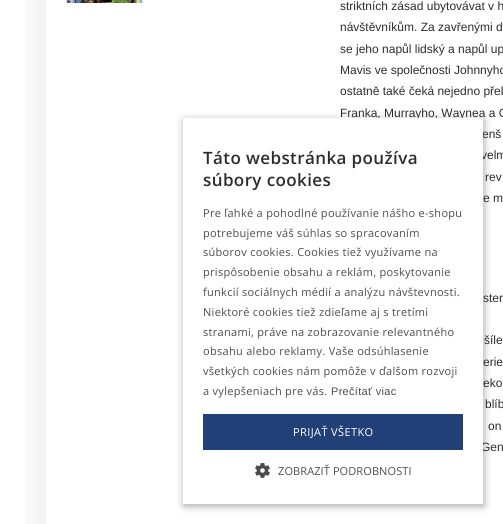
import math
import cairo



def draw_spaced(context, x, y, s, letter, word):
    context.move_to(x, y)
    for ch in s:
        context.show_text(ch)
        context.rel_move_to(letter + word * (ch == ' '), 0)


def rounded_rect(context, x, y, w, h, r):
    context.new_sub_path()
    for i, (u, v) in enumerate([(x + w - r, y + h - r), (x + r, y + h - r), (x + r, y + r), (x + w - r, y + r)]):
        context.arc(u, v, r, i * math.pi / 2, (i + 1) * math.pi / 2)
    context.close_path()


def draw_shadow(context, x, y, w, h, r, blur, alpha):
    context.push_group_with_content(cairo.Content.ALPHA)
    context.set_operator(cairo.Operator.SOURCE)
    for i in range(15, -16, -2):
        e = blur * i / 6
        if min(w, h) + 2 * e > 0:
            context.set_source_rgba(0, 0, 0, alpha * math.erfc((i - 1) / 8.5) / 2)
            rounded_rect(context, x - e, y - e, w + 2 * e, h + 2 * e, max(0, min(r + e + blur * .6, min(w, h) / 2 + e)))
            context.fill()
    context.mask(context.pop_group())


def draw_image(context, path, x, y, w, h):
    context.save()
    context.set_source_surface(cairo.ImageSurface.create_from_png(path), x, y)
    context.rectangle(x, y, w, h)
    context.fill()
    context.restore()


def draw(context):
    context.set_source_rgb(1, 1, 1)
    context.paint()
    draw_image(context, "images/1.png", 26, 0, 20, 524)
    draw_image(context, "images/2.png", 65, 0, 79, 3)
    context.set_source_rgb(0, 0, 0)
    draw_shadow(context, 184, 120, 300, 386, 0, 4, 0.35)
    context.select_font_face("Liberation Sans")
    context.set_font_size(12)
    context.set_source_rgb(45 / 255, 45 / 255, 45 / 255)
    context.move_to(340, 10)
    context.show_text("striktních zásad ubytovávat v h")
    context.move_to(340, 31)
    context.show_text("návštěvníkům. Za zavřenými d")
    context.move_to(340, 53)
    context.show_text("se jeho napůl lidský a napůl up")
    context.move_to(340, 74)
    context.show_text("Mavis ve společnosti Johnnyho")
    context.move_to(340, 95)
    context.show_text("ostatně také čeká nejedno přek")
    context.move_to(340, 117)
    context.show_text("Franka, Murrayho, Waynea a G")
    context.move_to(482, 138)
    context.show_text("enš")
    context.move_to(481, 159)
    context.show_text("velm")
    context.move_to(485, 181)
    context.show_text("rev")
    context.move_to(483, 202)
    context.show_text("e m")
    context.move_to(483, 302)
    context.show_text("ster")
    context.move_to(484, 344)
    context.show_text("šíle")
    context.move_to(483, 366)
    context.show_text("erie")
    context.move_to(483, 387)
    context.show_text("eko")
    context.move_to(485, 408)
    context.show_text("blíb")
    context.move_to(488, 430)
    context.show_text("on")
    context.move_to(481, 451)
    context.show_text("Gen")
    context.set_source_rgb(1, 1, 1)
    context.rectangle(183, 118, 300, 386)
    context.fill()
    context.select_font_face("Open Sans SemiBold")
    context.set_font_size(17)
    context.set_source_rgb(45 / 255, 45 / 255, 45 / 255)
    draw_spaced(context, 203, 164, "Táto webstránka používa", 0.4, 0)
    draw_spaced(context, 203, 186, "súbory cookies", 0.4, 0)
    context.select_font_face("Open Sans")
    context.set_font_size(11)
    context.set_source_rgb(77 / 255, 77 / 255, 77 / 255)
    draw_spaced(context, 203, 217, "Pre ľahké a pohodlné používanie nášho e-shopu", 0.3, 0)
    draw_spaced(context, 203, 237, "potrebujeme váš súhlas so spracovaním", 0.3, 0)
    draw_spaced(context, 203, 256, "súborov cookies. Cookies tiež využívame na", 0.3, 0)
    draw_spaced(context, 203, 276, "prispôsobenie obsahu a reklám, poskytovanie", 0.3, 0)
    draw_spaced(context, 203, 296, "funkcií sociálnych médií a analýzu návštevnosti.", 0.3, 0)
    draw_spaced(context, 203, 316, "Niektoré cookies tiež zdieľame aj s tretími", 0.3, 0)
    draw_spaced(context, 203, 336, "stranami, práve na zobrazovanie relevantného", 0.3, 0)
    draw_spaced(context, 203, 355, "obsahu alebo reklamy. Vaše odsúhlasenie", 0.3, 0)
    draw_spaced(context, 203, 375, "všetkých cookies nám pomôže v ďalšom rozvoji", 0.3, 0)
    draw_spaced(context, 203, 395, "a vylepšeniach pre vás.", 0.3, 0)
    context.select_font_face("Liberation Sans")
    draw_spaced(context, 331, 395, "Prečítať viac", 0.3, 0)
    context.set_source_rgb(33 / 255, 64 / 255, 119 / 255)
    context.rectangle(203, 414, 260, 36)
    context.fill()
    context.select_font_face("Open Sans")
    context.set_source_rgb(1, 1, 1)
    draw_spaced(context, 293, 436, "PRIJAŤ VŠETKO", 0.4, 0)
    draw_image(context, "images/3.png", 255, 463, 15, 15)
    context.set_source_rgb(77 / 255, 77 / 255, 77 / 255)
    draw_spaced(context, 278, 475, "ZOBRAZIŤ PODROBNOSTI", 0.1, 0)


surface = cairo.ImageSurface(cairo.Format.RGB24, 503, 524)
context = cairo.Context(surface)
options = cairo.FontOptions()
options.set_hint_metrics(cairo.HintMetrics.OFF)
options.set_hint_style(cairo.HintStyle.NONE)
context.set_font_options(options)
context.set_miter_limit(4)
draw(context)
surface.write_to_png("out.png")
